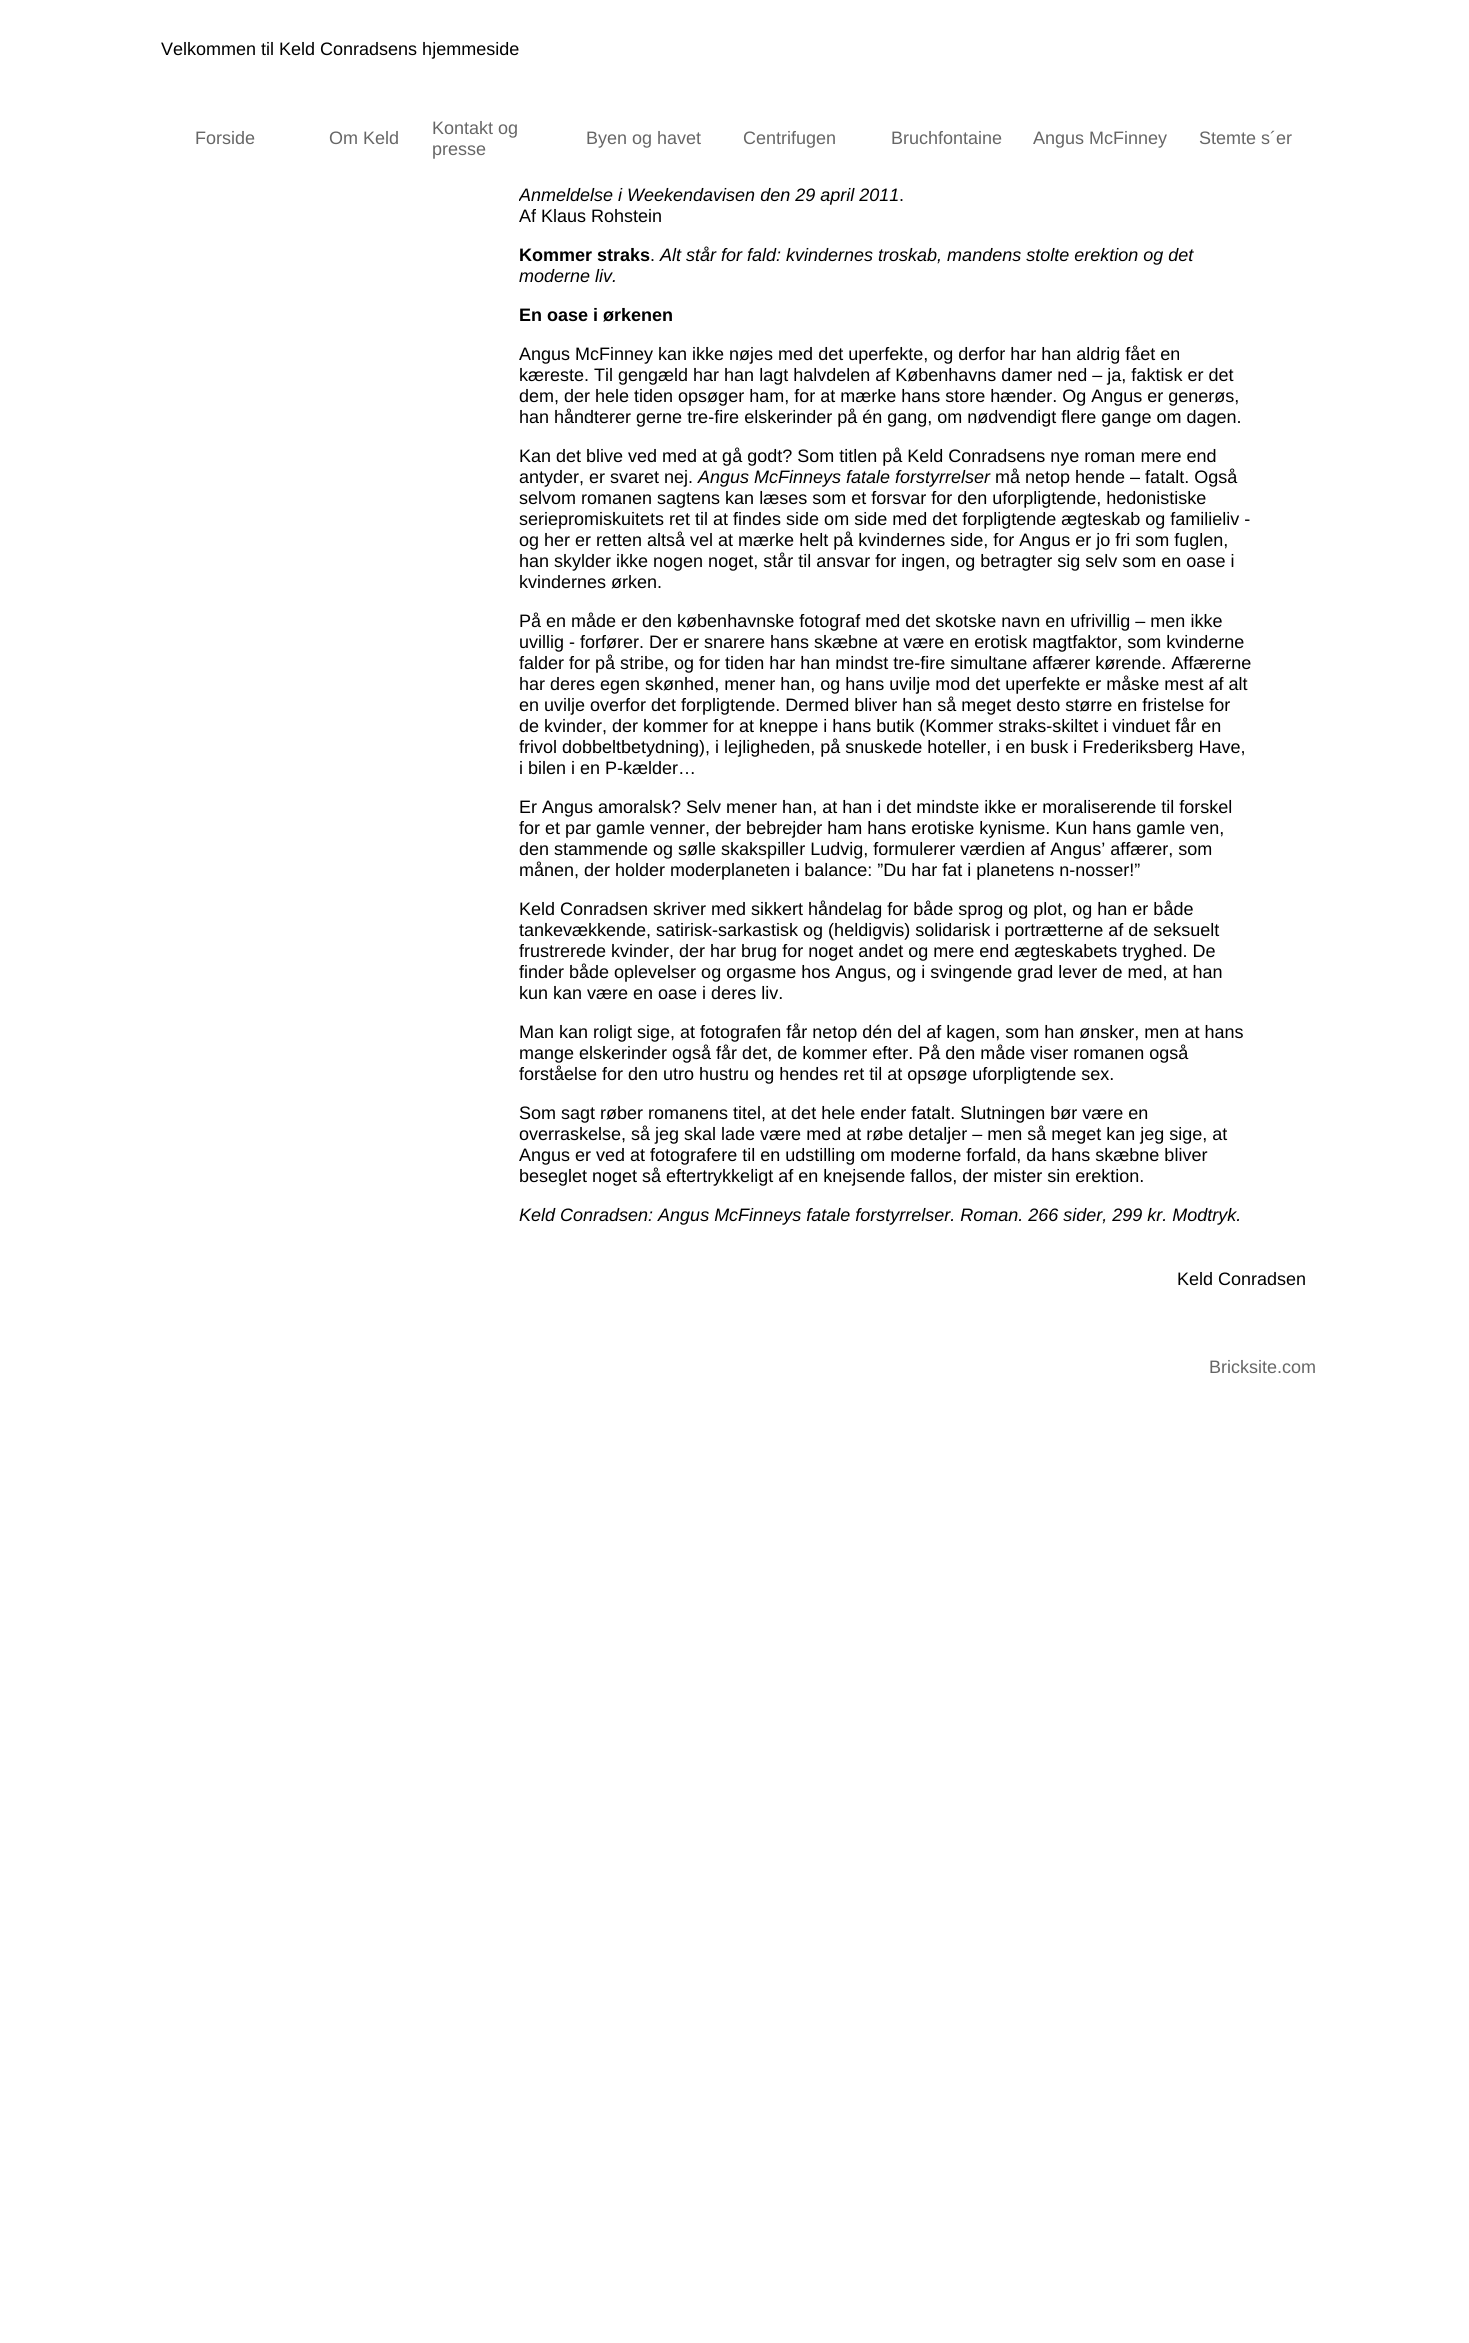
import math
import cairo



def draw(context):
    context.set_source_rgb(1, 1, 1)
    context.paint()
    context.select_font_face("Liberation Sans")
    context.set_font_size(18)
    context.set_source_rgb(0, 0, 0)
    context.move_to(161, 55)
    context.show_text("Velkommen til Keld Conradsens hjemmeside")
    context.set_source_rgb(102 / 255, 102 / 255, 102 / 255)
    context.move_to(195, 144)
    context.show_text("Forside")
    context.move_to(329, 144)
    context.show_text("Om Keld")
    context.move_to(432, 134)
    context.show_text("Kontakt og")
    context.move_to(432, 155)
    context.show_text("presse")
    context.move_to(586, 144)
    context.show_text("Byen og havet")
    context.move_to(743, 144)
    context.show_text("Centrifugen")
    context.move_to(891, 144)
    context.show_text("Bruchfontaine")
    context.move_to(1033, 144)
    context.show_text("Angus McFinney")
    context.move_to(1199, 144)
    context.show_text("Stemte s´er")
    context.save()
    context.rectangle(519, 185, 735, 1059)
    context.clip()
    context.select_font_face("Liberation Sans", cairo.FontSlant.ITALIC)
    context.set_source_rgb(0, 0, 0)
    context.move_to(519, 201)
    context.show_text("Anmeldelse i Weekendavisen den 29 april 2011")
    context.restore()
    context.set_source_rgb(0, 0, 0)
    context.move_to(899, 201)
    context.show_text(".")
    context.move_to(519, 222)
    context.show_text("Af Klaus Rohstein")
    context.select_font_face("Liberation Sans", cairo.FontSlant.NORMAL, cairo.FontWeight.BOLD)
    context.move_to(519, 261)
    context.show_text("Kommer straks")
    context.select_font_face("Liberation Sans")
    context.move_to(650, 261)
    context.show_text(".")
    context.select_font_face("Liberation Sans", cairo.FontSlant.ITALIC)
    context.move_to(660, 261)
    context.show_text("Alt står for fald: kvindernes troskab, mandens stolte erektion og det")
    context.move_to(519, 282)
    context.show_text("moderne liv.")
    context.select_font_face("Liberation Sans", cairo.FontSlant.NORMAL, cairo.FontWeight.BOLD)
    context.move_to(519, 321)
    context.show_text("En oase i ørkenen")
    context.select_font_face("Liberation Sans")
    context.move_to(519, 360)
    context.show_text("Angus McFinney kan ikke nøjes med det uperfekte, og derfor har han aldrig fået en")
    context.move_to(519, 381)
    context.show_text("kæreste. Til gengæld har han lagt halvdelen af Københavns damer ned – ja, faktisk er det")
    context.move_to(519, 402)
    context.show_text("dem, der hele tiden opsøger ham, for at mærke hans store hænder. Og Angus er generøs,")
    context.move_to(519, 423)
    context.show_text("han håndterer gerne tre-fire elskerinder på én gang, om nødvendigt flere gange om dagen.")
    context.move_to(519, 462)
    context.show_text("Kan det blive ved med at gå godt? Som titlen på Keld Conradsens nye roman mere end")
    context.move_to(519, 483)
    context.show_text("antyder, er svaret nej.")
    context.select_font_face("Liberation Sans", cairo.FontSlant.ITALIC)
    context.move_to(698, 483)
    context.show_text("Angus McFinneys fatale forstyrrelser")
    context.select_font_face("Liberation Sans")
    context.move_to(995, 483)
    context.show_text("må netop hende – fatalt. Også")
    context.move_to(519, 504)
    context.show_text("selvom romanen sagtens kan læses som et forsvar for den uforpligtende, hedonistiske")
    context.move_to(519, 525)
    context.show_text("seriepromiskuitets ret til at findes side om side med det forpligtende ægteskab og familieliv -")
    context.move_to(519, 546)
    context.show_text("og her er retten altså vel at mærke helt på kvindernes side, for Angus er jo fri som fuglen,")
    context.move_to(519, 567)
    context.show_text("han skylder ikke nogen noget, står til ansvar for ingen, og betragter sig selv som en oase i")
    context.move_to(519, 588)
    context.show_text("kvindernes ørken.")
    context.move_to(519, 627)
    context.show_text("På en måde er den københavnske fotograf med det skotske navn en ufrivillig – men ikke")
    context.move_to(519, 648)
    context.show_text("uvillig - forfører. Der er snarere hans skæbne at være en erotisk magtfaktor, som kvinderne")
    context.move_to(519, 669)
    context.show_text("falder for på stribe, og for tiden har han mindst tre-fire simultane affærer kørende. Affærerne")
    context.move_to(519, 690)
    context.show_text("har deres egen skønhed, mener han, og hans uvilje mod det uperfekte er måske mest af alt")
    context.move_to(519, 711)
    context.show_text("en uvilje overfor det forpligtende. Dermed bliver han så meget desto større en fristelse for")
    context.move_to(519, 732)
    context.show_text("de kvinder, der kommer for at kneppe i hans butik (Kommer straks-skiltet i vinduet får en")
    context.move_to(519, 753)
    context.show_text("frivol dobbeltbetydning), i lejligheden, på snuskede hoteller, i en busk i Frederiksberg Have,")
    context.move_to(519, 774)
    context.show_text("i bilen i en P-kælder…")
    context.move_to(519, 813)
    context.show_text("Er Angus amoralsk? Selv mener han, at han i det mindste ikke er moraliserende til forskel")
    context.move_to(519, 834)
    context.show_text("for et par gamle venner, der bebrejder ham hans erotiske kynisme. Kun hans gamle ven,")
    context.move_to(519, 855)
    context.show_text("den stammende og sølle skakspiller Ludvig, formulerer værdien af Angus’ affærer, som")
    context.move_to(519, 876)
    context.show_text("månen, der holder moderplaneten i balance: ”Du har fat i planetens n-nosser!”")
    context.move_to(519, 915)
    context.show_text("Keld Conradsen skriver med sikkert håndelag for både sprog og plot, og han er både")
    context.move_to(519, 936)
    context.show_text("tankevækkende, satirisk-sarkastisk og (heldigvis) solidarisk i portrætterne af de seksuelt")
    context.move_to(519, 957)
    context.show_text("frustrerede kvinder, der har brug for noget andet og mere end ægteskabets tryghed. De")
    context.move_to(519, 978)
    context.show_text("finder både oplevelser og orgasme hos Angus, og i svingende grad lever de med, at han")
    context.move_to(519, 999)
    context.show_text("kun kan være en oase i deres liv.")
    context.move_to(519, 1038)
    context.show_text("Man kan roligt sige, at fotografen får netop dén del af kagen, som han ønsker, men at hans")
    context.move_to(519, 1059)
    context.show_text("mange elskerinder også får det, de kommer efter. På den måde viser romanen også")
    context.move_to(519, 1080)
    context.show_text("forståelse for den utro hustru og hendes ret til at opsøge uforpligtende sex.")
    context.move_to(519, 1119)
    context.show_text("Som sagt røber romanens titel, at det hele ender fatalt. Slutningen bør være en")
    context.move_to(519, 1140)
    context.show_text("overraskelse, så jeg skal lade være med at røbe detaljer – men så meget kan jeg sige, at")
    context.move_to(519, 1161)
    context.show_text("Angus er ved at fotografere til en udstilling om moderne forfald, da hans skæbne bliver")
    context.move_to(519, 1182)
    context.show_text("beseglet noget så eftertrykkeligt af en knejsende fallos, der mister sin erektion.")
    context.select_font_face("Liberation Sans", cairo.FontSlant.ITALIC)
    context.move_to(519, 1221)
    context.show_text("Keld Conradsen: Angus McFinneys fatale forstyrrelser. Roman. 266 sider, 299 kr. Modtryk.")
    context.select_font_face("Liberation Sans")
    context.move_to(1177, 1285)
    context.show_text("Keld Conradsen")
    context.set_source_rgb(102 / 255, 102 / 255, 102 / 255)
    context.move_to(1209, 1373)
    context.show_text("Bricksite.com")


surface = cairo.ImageSurface(cairo.Format.RGB24, 1469, 2343)
context = cairo.Context(surface)
options = cairo.FontOptions()
options.set_hint_metrics(cairo.HintMetrics.OFF)
options.set_hint_style(cairo.HintStyle.NONE)
context.set_font_options(options)
context.set_miter_limit(4)
draw(context)
surface.write_to_png("out.png")
